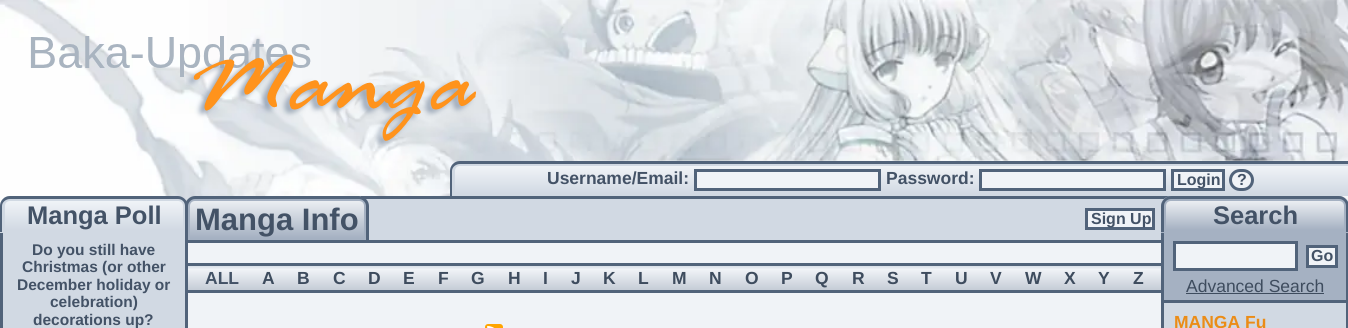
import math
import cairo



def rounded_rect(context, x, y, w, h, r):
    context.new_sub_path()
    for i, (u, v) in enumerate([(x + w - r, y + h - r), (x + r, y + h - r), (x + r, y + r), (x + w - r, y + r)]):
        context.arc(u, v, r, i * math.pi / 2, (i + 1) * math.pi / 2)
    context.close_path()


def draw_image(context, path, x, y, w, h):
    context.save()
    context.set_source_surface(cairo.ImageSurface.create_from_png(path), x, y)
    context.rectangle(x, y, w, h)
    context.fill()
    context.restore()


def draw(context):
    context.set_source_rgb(240 / 255, 243 / 255, 247 / 255)
    context.paint()
    draw_image(context, "images/1.png", 0, 0, 1348, 206)
    draw_image(context, "images/2.png", 30, 36, 281, 41)
    draw_image(context, "images/3.png", 186, 54, 290, 94)
    context.set_source_rgb(209 / 255, 217 / 255, 227 / 255)
    context.new_path()
    context.move_to(460, 161)
    context.line_to(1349, 161)
    context.line_to(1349, 196)
    context.line_to(450, 196)
    context.line_to(450, 171)
    context.curve_to(450, 165.5, 454.5, 161, 460, 161)
    context.close_path()
    context.fill()
    context.set_source_rgb(81 / 255, 99 / 255, 122 / 255)
    context.set_fill_rule(cairo.FillRule.EVEN_ODD)
    context.new_path()
    context.move_to(460, 161)
    context.line_to(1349, 161)
    context.line_to(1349, 196)
    context.line_to(450, 196)
    context.line_to(450, 171)
    context.curve_to(450, 166, 454, 161, 460, 161)
    context.close_path()
    context.move_to(460, 164)
    context.line_to(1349, 164)
    context.line_to(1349, 196)
    context.line_to(452, 196)
    context.line_to(452, 171)
    context.curve_to(452, 167, 456, 164, 460, 164)
    context.close_path()
    context.fill()
    gradient = cairo.LinearGradient(902, 166, 902, 194)
    gradient.add_color_stop_rgba(0, 240 / 255, 243 / 255, 247 / 255, 1)
    gradient.add_color_stop_rgba(1, 209 / 255, 217 / 255, 227 / 255, 1)
    context.set_source(gradient)
    context.new_path()
    context.move_to(460, 166)
    context.line_to(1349, 166)
    context.line_to(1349, 194)
    context.line_to(455, 194)
    context.line_to(455, 171)
    context.curve_to(455, 168, 457, 166, 460, 166)
    context.close_path()
    context.fill()
    context.set_source_rgb(240 / 255, 243 / 255, 247 / 255)
    context.rectangle(695.5, 170.5, 184, 19)
    context.fill_preserve()
    context.set_source_rgb(81 / 255, 99 / 255, 122 / 255)
    context.set_line_width(3)
    context.stroke()
    context.set_source_rgb(240 / 255, 243 / 255, 247 / 255)
    context.rectangle(980.5, 170.5, 184, 19)
    context.fill_preserve()
    context.set_source_rgb(81 / 255, 99 / 255, 122 / 255)
    context.stroke()
    context.set_source_rgb(240 / 255, 243 / 255, 247 / 255)
    context.rectangle(1172.5, 170.5, 51, 19)
    context.fill_preserve()
    context.set_source_rgb(81 / 255, 99 / 255, 122 / 255)
    context.stroke()
    context.set_source_rgb(240 / 255, 243 / 255, 247 / 255)
    rounded_rect(context, 1230.5, 170.5, 22, 19, 9.5)
    context.fill_preserve()
    context.set_source_rgb(81 / 255, 99 / 255, 122 / 255)
    context.stroke()
    context.set_source_rgb(209 / 255, 217 / 255, 227 / 255)
    context.new_path()
    context.move_to(10, 196)
    context.line_to(178, 196)
    context.curve_to(183.5, 196, 188, 200.5, 188, 206)
    context.line_to(188, 233)
    context.line_to(0, 233)
    context.line_to(0, 206)
    context.curve_to(0, 200.5, 4.5, 196, 10, 196)
    context.close_path()
    context.fill()
    context.set_source_rgb(81 / 255, 99 / 255, 122 / 255)
    context.new_path()
    context.move_to(10, 196)
    context.line_to(178, 196)
    context.curve_to(183, 196, 188, 201, 188, 206)
    context.line_to(188, 232)
    context.line_to(0, 232)
    context.line_to(0, 206)
    context.curve_to(0, 201, 4, 196, 10, 196)
    context.close_path()
    context.move_to(10, 199)
    context.line_to(178, 199)
    context.curve_to(182, 199, 185, 202, 185, 206)
    context.line_to(185, 232)
    context.line_to(2, 232)
    context.line_to(2, 206)
    context.curve_to(2, 202, 6, 199, 10, 199)
    context.close_path()
    context.fill()
    gradient = cairo.LinearGradient(94, 201, 94, 230)
    gradient.add_color_stop_rgba(0, 240 / 255, 243 / 255, 247 / 255, 1)
    gradient.add_color_stop_rgba(1, 209 / 255, 217 / 255, 227 / 255, 1)
    context.set_source(gradient)
    context.new_path()
    context.move_to(10, 201)
    context.line_to(178, 201)
    context.curve_to(181, 201, 183, 203, 183, 206)
    context.line_to(183, 230)
    context.line_to(5, 230)
    context.line_to(5, 206)
    context.curve_to(5, 203, 7, 201, 10, 201)
    context.close_path()
    context.fill()
    context.set_source_rgb(209 / 255, 217 / 255, 227 / 255)
    context.rectangle(3, 233, 182, 95)
    context.fill()
    context.set_source_rgb(81 / 255, 99 / 255, 122 / 255)
    context.rectangle(185, 243, 3, 85)
    context.fill()
    context.rectangle(0, 233, 3, 95)
    context.fill()
    context.set_source_rgb(209 / 255, 217 / 255, 227 / 255)
    context.rectangle(366, 199, 798, 41)
    context.fill()
    context.set_source_rgb(81 / 255, 99 / 255, 122 / 255)
    context.rectangle(361, 196, 809, 3)
    context.fill()
    context.rectangle(361, 240, 800, 3)
    context.fill()
    context.set_source_rgb(165 / 255, 177 / 255, 194 / 255)
    context.new_path()
    context.move_to(195, 197.5)
    context.line_to(359, 197.5)
    context.curve_to(363.5, 197.5, 367.5, 201.5, 367.5, 206)
    context.line_to(367.5, 241.5)
    context.line_to(186.5, 241.5)
    context.line_to(186.5, 206)
    context.curve_to(186.5, 201.5, 190.5, 197.5, 195, 197.5)
    context.close_path()
    context.fill_preserve()
    context.set_source_rgb(81 / 255, 99 / 255, 122 / 255)
    context.stroke()
    gradient = cairo.LinearGradient(277, 201, 277, 238)
    gradient.add_color_stop_rgba(0, 235 / 255, 238 / 255, 242 / 255, 1)
    gradient.add_color_stop_rgba(1, 165 / 255, 177 / 255, 194 / 255, 1)
    context.set_source(gradient)
    context.new_path()
    context.move_to(195, 201)
    context.line_to(359, 201)
    context.curve_to(362, 201, 364, 203, 364, 206)
    context.line_to(364, 238)
    context.line_to(190, 238)
    context.line_to(190, 206)
    context.curve_to(190, 203, 192, 201, 195, 201)
    context.close_path()
    context.fill()
    context.set_source_rgb(240 / 255, 243 / 255, 247 / 255)
    context.rectangle(1086.5, 209.5, 67, 19)
    context.fill_preserve()
    context.set_source_rgb(81 / 255, 99 / 255, 122 / 255)
    context.stroke()
    gradient = cairo.LinearGradient(674, 265, 674, 290)
    gradient.add_color_stop_rgba(0, 209 / 255, 217 / 255, 227 / 255, 1)
    gradient.add_color_stop_rgba(0.18, 240 / 255, 243 / 255, 247 / 255, 1)
    gradient.add_color_stop_rgba(1, 197 / 255, 204 / 255, 214 / 255, 1)
    context.set_source(gradient)
    context.rectangle(188, 266, 973, 24)
    context.fill()
    context.set_source_rgb(81 / 255, 99 / 255, 122 / 255)
    context.rectangle(188, 263, 973, 3)
    context.fill()
    context.rectangle(188, 290, 973, 3)
    context.fill()
    draw_image(context, "images/4.png", 485, 324, 18, 4)
    context.set_source_rgb(165 / 255, 177 / 255, 194 / 255)
    context.new_path()
    context.move_to(1171, 196)
    context.line_to(1339, 196)
    context.curve_to(1344.5, 196, 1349, 200.5, 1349, 206)
    context.line_to(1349, 233)
    context.line_to(1161, 233)
    context.line_to(1161, 206)
    context.curve_to(1161, 200.5, 1165.5, 196, 1171, 196)
    context.close_path()
    context.fill()
    context.set_source_rgb(81 / 255, 99 / 255, 122 / 255)
    context.new_path()
    context.move_to(1171, 196)
    context.line_to(1339, 196)
    context.curve_to(1344, 196, 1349, 201, 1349, 206)
    context.line_to(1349, 232)
    context.line_to(1161, 232)
    context.line_to(1161, 206)
    context.curve_to(1161, 201, 1166, 196, 1171, 196)
    context.close_path()
    context.move_to(1171, 199)
    context.line_to(1339, 199)
    context.curve_to(1343, 199, 1346, 202, 1346, 206)
    context.line_to(1346, 232)
    context.line_to(1164, 232)
    context.line_to(1164, 206)
    context.curve_to(1164, 202, 1167, 199, 1171, 199)
    context.close_path()
    context.fill()
    gradient = cairo.LinearGradient(1255, 201, 1255, 230)
    gradient.add_color_stop_rgba(0, 235 / 255, 238 / 255, 242 / 255, 1)
    gradient.add_color_stop_rgba(1, 165 / 255, 177 / 255, 194 / 255, 1)
    context.set_source(gradient)
    context.new_path()
    context.move_to(1171, 201)
    context.line_to(1339, 201)
    context.curve_to(1342, 201, 1344, 203, 1344, 206)
    context.line_to(1344, 230)
    context.line_to(1166, 230)
    context.line_to(1166, 206)
    context.curve_to(1166, 203, 1168, 201, 1171, 201)
    context.close_path()
    context.fill()
    context.set_source_rgb(165 / 255, 177 / 255, 194 / 255)
    context.rectangle(1164, 233, 182, 67)
    context.fill()
    context.set_source_rgb(81 / 255, 99 / 255, 122 / 255)
    context.rectangle(1346, 233, 2, 95)
    context.fill()
    context.rectangle(1161, 300, 187, 3)
    context.fill()
    context.rectangle(1161, 233, 3, 70)
    context.fill()
    context.set_source_rgb(240 / 255, 243 / 255, 247 / 255)
    context.rectangle(1174.5, 242.5, 122, 27)
    context.fill_preserve()
    context.set_source_rgb(81 / 255, 99 / 255, 122 / 255)
    context.stroke()
    context.set_source_rgb(240 / 255, 243 / 255, 247 / 255)
    context.rectangle(1307.5, 246.5, 29, 20)
    context.fill_preserve()
    context.set_source_rgb(81 / 255, 99 / 255, 122 / 255)
    context.stroke()
    context.set_source_rgb(62 / 255, 76 / 255, 94 / 255)
    context.rectangle(1186, 293, 138, 1)
    context.fill()
    context.set_source_rgb(209 / 255, 217 / 255, 227 / 255)
    context.rectangle(1164, 303, 182, 25)
    context.fill()
    context.set_source_rgb(81 / 255, 99 / 255, 122 / 255)
    context.rectangle(1161, 303, 3, 25)
    context.fill()
    context.select_font_face("Liberation Sans", cairo.FontSlant.NORMAL, cairo.FontWeight.BOLD)
    context.set_font_size(17.5)
    context.set_source_rgb(67 / 255, 82 / 255, 102 / 255)
    context.move_to(547, 184)
    context.show_text("Username/Email:")
    context.move_to(886, 184)
    context.show_text("Password:")
    context.set_font_size(16)
    context.move_to(1177, 185)
    context.show_text("Login")
    context.move_to(1237, 185)
    context.show_text("?")
    context.set_font_size(25.5)
    context.move_to(27, 224)
    context.show_text("Manga Poll")
    context.set_font_size(15.5)
    context.move_to(32, 255)
    context.show_text("Do you still have")
    context.move_to(22, 272)
    context.show_text("Christmas (or other")
    context.move_to(17, 290)
    context.show_text("December holiday or")
    context.move_to(50, 307)
    context.show_text("celebration)")
    context.move_to(33, 325)
    context.show_text("decorations up?")
    context.set_font_size(31)
    context.move_to(195, 230)
    context.show_text("Manga Info")
    context.set_font_size(16)
    context.move_to(1091, 224)
    context.show_text("Sign Up")
    context.set_font_size(17.5)
    context.move_to(205, 284)
    context.show_text("ALL")
    context.set_source_rgb(62 / 255, 76 / 255, 94 / 255)
    context.move_to(262, 284)
    context.show_text("A")
    context.move_to(297, 284)
    context.show_text("B")
    context.move_to(333, 284)
    context.show_text("C")
    context.move_to(368, 284)
    context.show_text("D")
    context.move_to(403, 284)
    context.show_text("E")
    context.move_to(438, 284)
    context.show_text("F")
    context.move_to(471, 284)
    context.show_text("G")
    context.move_to(508, 284)
    context.show_text("H")
    context.move_to(543, 284)
    context.show_text("I")
    context.move_to(571, 284)
    context.show_text("J")
    context.move_to(603, 284)
    context.show_text("K")
    context.move_to(638, 284)
    context.show_text("L")
    context.move_to(672, 284)
    context.show_text("M")
    context.move_to(709, 284)
    context.show_text("N")
    context.move_to(745, 284)
    context.show_text("O")
    context.move_to(781, 284)
    context.show_text("P")
    context.move_to(815, 284)
    context.show_text("Q")
    context.move_to(852, 284)
    context.show_text("R")
    context.move_to(887, 284)
    context.show_text("S")
    context.move_to(921, 284)
    context.show_text("T")
    context.move_to(955, 284)
    context.show_text("U")
    context.move_to(990, 284)
    context.show_text("V")
    context.move_to(1025, 284)
    context.show_text("W")
    context.move_to(1064, 284)
    context.show_text("X")
    context.move_to(1098, 284)
    context.show_text("Y")
    context.move_to(1133, 284)
    context.show_text("Z")
    context.set_font_size(25.5)
    context.set_source_rgb(67 / 255, 82 / 255, 102 / 255)
    context.move_to(1213, 224)
    context.show_text("Search")
    context.set_font_size(16)
    context.move_to(1311, 261)
    context.show_text("Go")
    context.select_font_face("Liberation Sans")
    context.set_font_size(17.5)
    context.set_source_rgb(62 / 255, 76 / 255, 94 / 255)
    context.move_to(1186, 292)
    context.show_text("Advanced Search")
    context.select_font_face("Liberation Sans", cairo.FontSlant.NORMAL, cairo.FontWeight.BOLD)
    context.set_source_rgb(235 / 255, 140 / 255, 23 / 255)
    context.move_to(1174, 328)
    context.show_text("MANGA Fu")


surface = cairo.ImageSurface(cairo.Format.RGB24, 1348, 328)
context = cairo.Context(surface)
options = cairo.FontOptions()
options.set_hint_metrics(cairo.HintMetrics.OFF)
options.set_hint_style(cairo.HintStyle.NONE)
context.set_font_options(options)
context.set_miter_limit(4)
draw(context)
surface.write_to_png("out.png")
